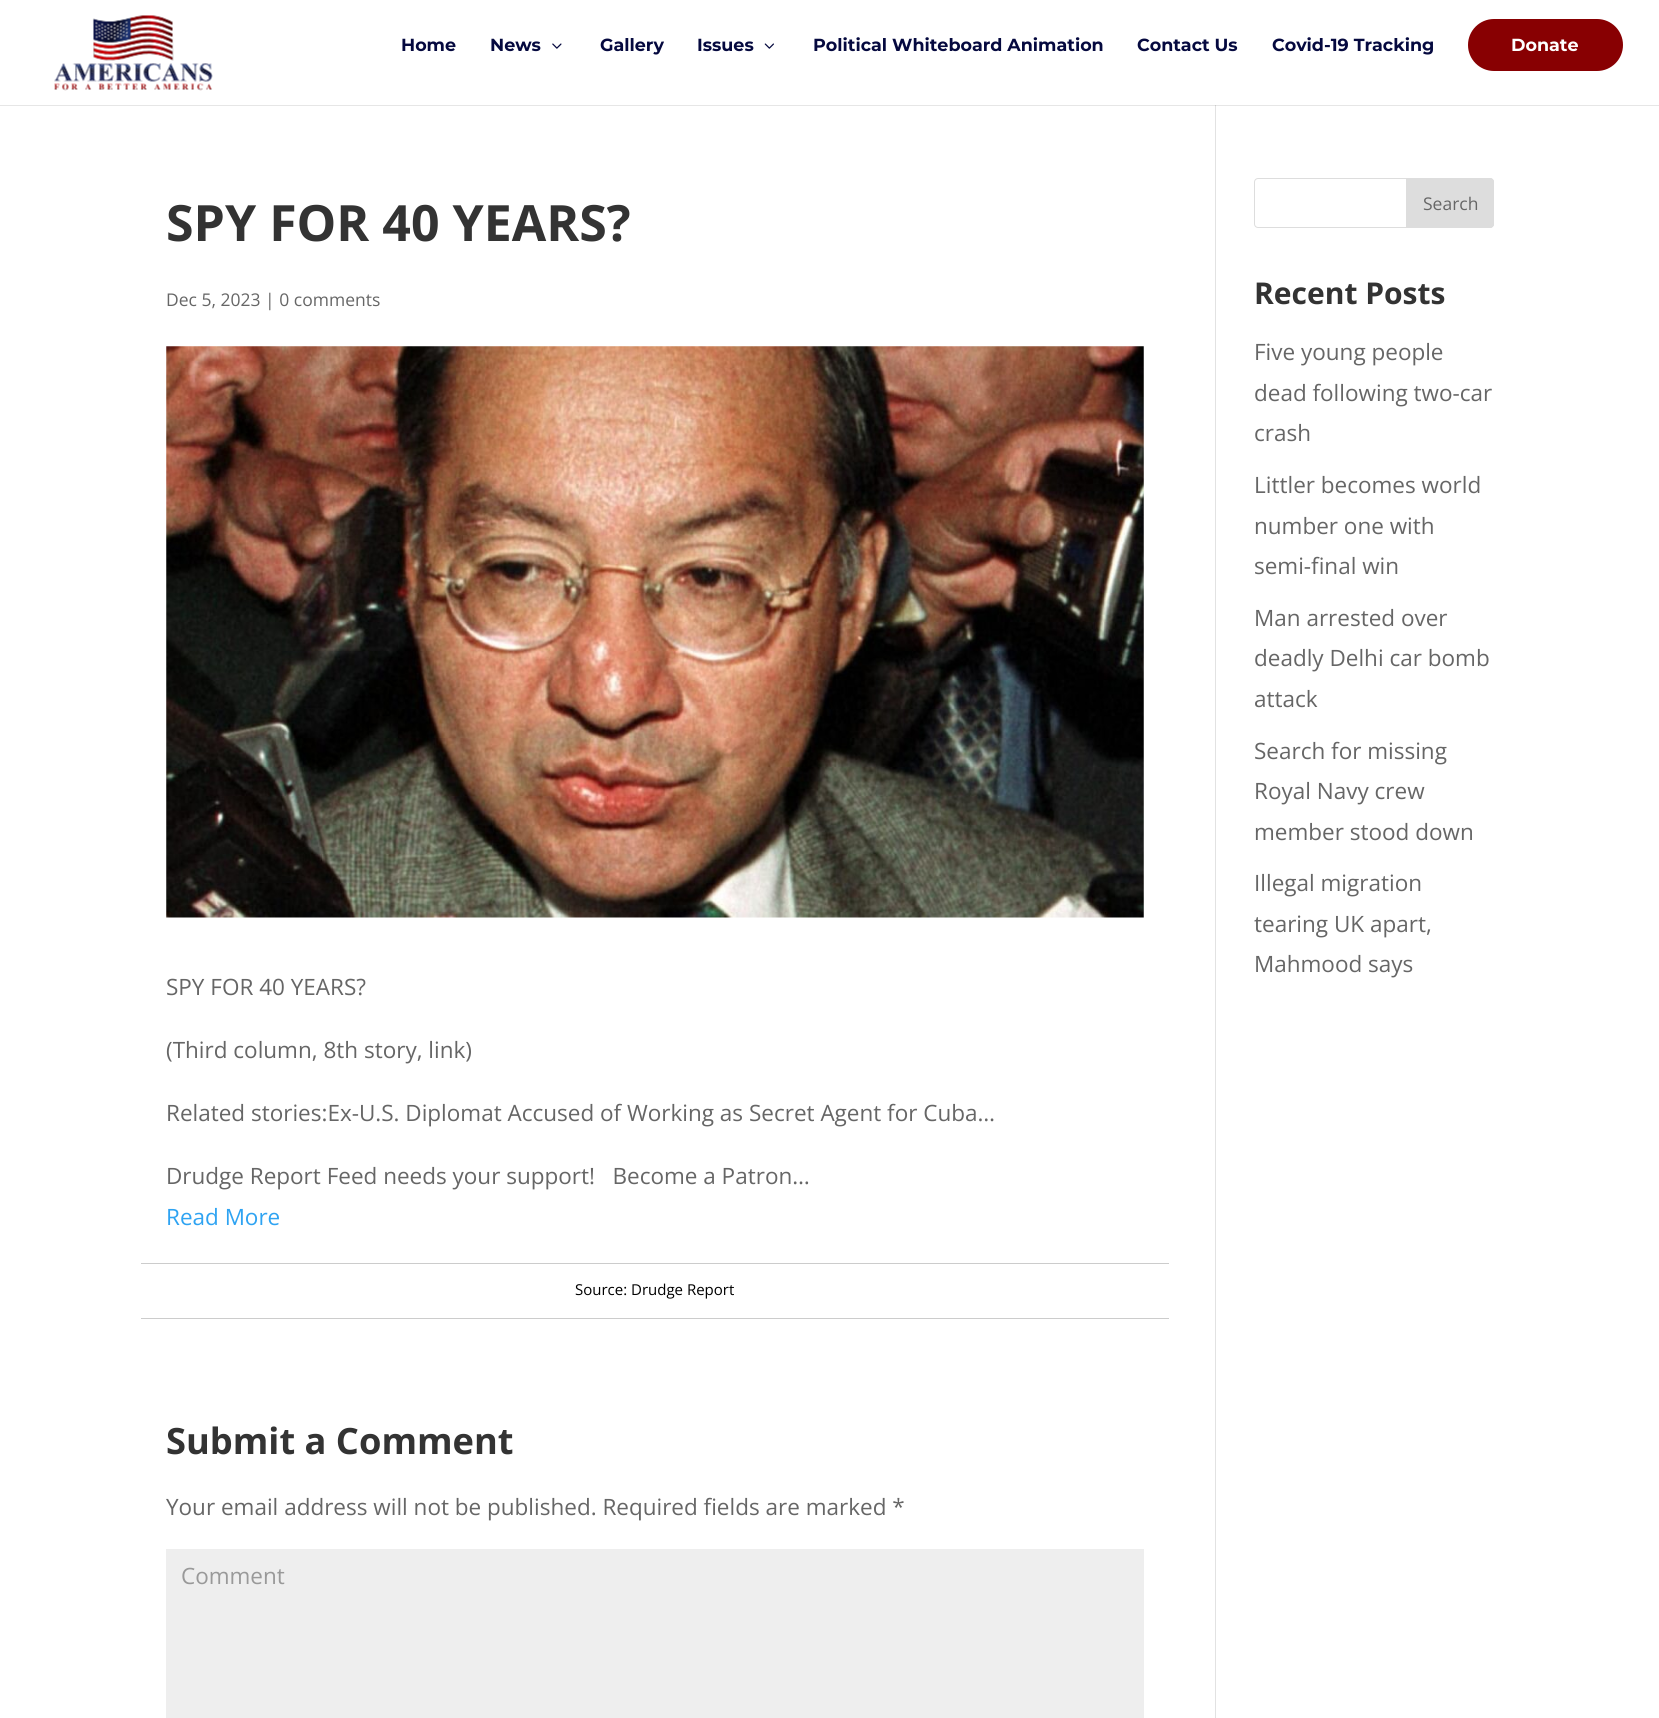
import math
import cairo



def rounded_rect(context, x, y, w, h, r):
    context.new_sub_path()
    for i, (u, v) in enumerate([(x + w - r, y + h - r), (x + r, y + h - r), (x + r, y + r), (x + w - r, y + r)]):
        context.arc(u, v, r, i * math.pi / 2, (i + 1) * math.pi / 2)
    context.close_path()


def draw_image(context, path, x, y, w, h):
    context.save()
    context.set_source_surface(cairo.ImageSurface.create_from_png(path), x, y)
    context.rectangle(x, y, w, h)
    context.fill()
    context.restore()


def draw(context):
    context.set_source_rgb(1, 1, 1)
    context.paint()
    context.set_source_rgb(230 / 255, 230 / 255, 230 / 255)
    context.rectangle(0, 105, 1659, 1)
    context.fill()
    draw_image(context, "images/1.png", 54, 15, 159, 76)
    draw_image(context, "images/2.png", 552, 43, 10, 6)
    draw_image(context, "images/3.png", 764, 43, 10, 6)
    context.set_source_rgb(136 / 255, 0, 2 / 255)
    rounded_rect(context, 1468, 19, 155, 52, 26)
    context.fill()
    context.set_source_rgb(226 / 255, 226 / 255, 226 / 255)
    context.rectangle(1215, 105, 1, 1613)
    context.fill()
    context.set_source_rgb(203 / 255, 203 / 255, 203 / 255)
    context.rectangle(1215, 105, 1, 1)
    context.fill()
    draw_image(context, "images/4.png", 166, 346, 978, 572)
    context.set_source_rgb(204 / 255, 204 / 255, 204 / 255)
    context.rectangle(141, 1263, 1028, 1)
    context.fill()
    context.rectangle(141, 1318, 1028, 1)
    context.fill()
    context.set_source_rgb(238 / 255, 238 / 255, 238 / 255)
    context.rectangle(166, 1549, 978, 169)
    context.fill()
    rounded_rect(context, 1254.5, 178.5, 239, 49, 3.5)
    context.set_source_rgb(221 / 255, 221 / 255, 221 / 255)
    context.set_line_width(1)
    context.stroke()
    context.new_path()
    context.move_to(1406.5, 178.5)
    context.line_to(1490, 178.5)
    context.curve_to(1492, 178.5, 1493.5, 180, 1493.5, 182)
    context.line_to(1493.5, 224)
    context.curve_to(1493.5, 226, 1492, 227.5, 1490, 227.5)
    context.line_to(1406.5, 227.5)
    context.close_path()
    context.fill_preserve()
    context.stroke()
    context.select_font_face("Montserrat", cairo.FontSlant.NORMAL, cairo.FontWeight.BOLD)
    context.set_font_size(17.5)
    context.set_source_rgb(5 / 255, 9 / 255, 63 / 255)
    context.move_to(401, 51)
    context.show_text("Home")
    context.move_to(490, 51)
    context.show_text("News")
    context.move_to(600, 51)
    context.show_text("Gallery")
    context.move_to(697, 51)
    context.show_text("Issues")
    context.move_to(813, 51)
    context.show_text("Political Whiteboard Animation")
    context.move_to(1137, 51)
    context.show_text("Contact Us")
    context.move_to(1272, 51)
    context.show_text("Covid-19 Tracking")
    context.set_source_rgb(1, 1, 1)
    context.move_to(1511, 51)
    context.show_text("Donate")
    context.select_font_face("Open Sans", cairo.FontSlant.NORMAL, cairo.FontWeight.BOLD)
    context.set_font_size(50)
    context.set_source_rgb(51 / 255, 51 / 255, 51 / 255)
    context.move_to(166, 241)
    context.show_text("SPY FOR 40 YEARS?")
    context.select_font_face("Open Sans")
    context.set_font_size(17.5)
    context.set_source_rgb(102 / 255, 102 / 255, 102 / 255)
    context.move_to(166, 306)
    context.show_text("Dec 5, 2023 | 0 comments")
    context.set_font_size(22.5)
    context.move_to(166, 995)
    context.show_text("SPY FOR 40 YEARS?")
    context.move_to(166, 1058)
    context.show_text("(Third column, 8th story, link)")
    context.move_to(166, 1121)
    context.show_text("Related stories:Ex-U.S. Diplomat Accused of Working as Secret Agent for Cuba…")
    context.move_to(166, 1184)
    context.show_text("Drudge Report Feed needs your support!   Become a Patron…")
    context.set_source_rgb(46 / 255, 163 / 255, 242 / 255)
    context.move_to(166, 1225)
    context.show_text("Read More")
    context.set_font_size(15)
    context.set_source_rgb(0, 0, 0)
    context.move_to(575, 1295)
    context.show_text("Source: Drudge Report")
    context.select_font_face("Open Sans", cairo.FontSlant.NORMAL, cairo.FontWeight.BOLD)
    context.set_font_size(36.25)
    context.set_source_rgb(51 / 255, 51 / 255, 51 / 255)
    context.move_to(166, 1454)
    context.show_text("Submit a Comment")
    context.select_font_face("Open Sans")
    context.set_font_size(22.5)
    context.set_source_rgb(102 / 255, 102 / 255, 102 / 255)
    context.move_to(166, 1515)
    context.show_text("Your email address will not be published. Required fields are marked *")
    context.set_source_rgb(153 / 255, 153 / 255, 153 / 255)
    context.move_to(181, 1584)
    context.show_text("Comment")
    context.set_font_size(17.5)
    context.set_source_rgb(102 / 255, 102 / 255, 102 / 255)
    context.move_to(1423, 210)
    context.show_text("Search")
    context.select_font_face("Open Sans", cairo.FontSlant.NORMAL, cairo.FontWeight.BOLD)
    context.set_font_size(30)
    context.set_source_rgb(51 / 255, 51 / 255, 51 / 255)
    context.move_to(1254, 304)
    context.show_text("Recent Posts")
    context.select_font_face("Open Sans")
    context.set_font_size(22.5)
    context.set_source_rgb(102 / 255, 102 / 255, 102 / 255)
    context.move_to(1254, 360)
    context.show_text("Five young people")
    context.move_to(1254, 401)
    context.show_text("dead following two-car")
    context.move_to(1254, 441)
    context.show_text("crash")
    context.move_to(1254, 493)
    context.show_text("Littler becomes world")
    context.move_to(1254, 534)
    context.show_text("number one with")
    context.move_to(1254, 574)
    context.show_text("semi-final win")
    context.move_to(1254, 626)
    context.show_text("Man arrested over")
    context.move_to(1254, 666)
    context.show_text("deadly Delhi car bomb")
    context.move_to(1254, 707)
    context.show_text("attack")
    context.move_to(1254, 759)
    context.show_text("Search for missing")
    context.move_to(1254, 799)
    context.show_text("Royal Navy crew")
    context.move_to(1254, 840)
    context.show_text("member stood down")
    context.move_to(1254, 891)
    context.show_text("Illegal migration")
    context.move_to(1254, 932)
    context.show_text("tearing UK apart,")
    context.move_to(1254, 972)
    context.show_text("Mahmood says")


surface = cairo.ImageSurface(cairo.Format.RGB24, 1659, 1718)
context = cairo.Context(surface)
options = cairo.FontOptions()
options.set_hint_metrics(cairo.HintMetrics.OFF)
options.set_hint_style(cairo.HintStyle.NONE)
context.set_font_options(options)
context.set_miter_limit(4)
draw(context)
surface.write_to_png("out.png")
